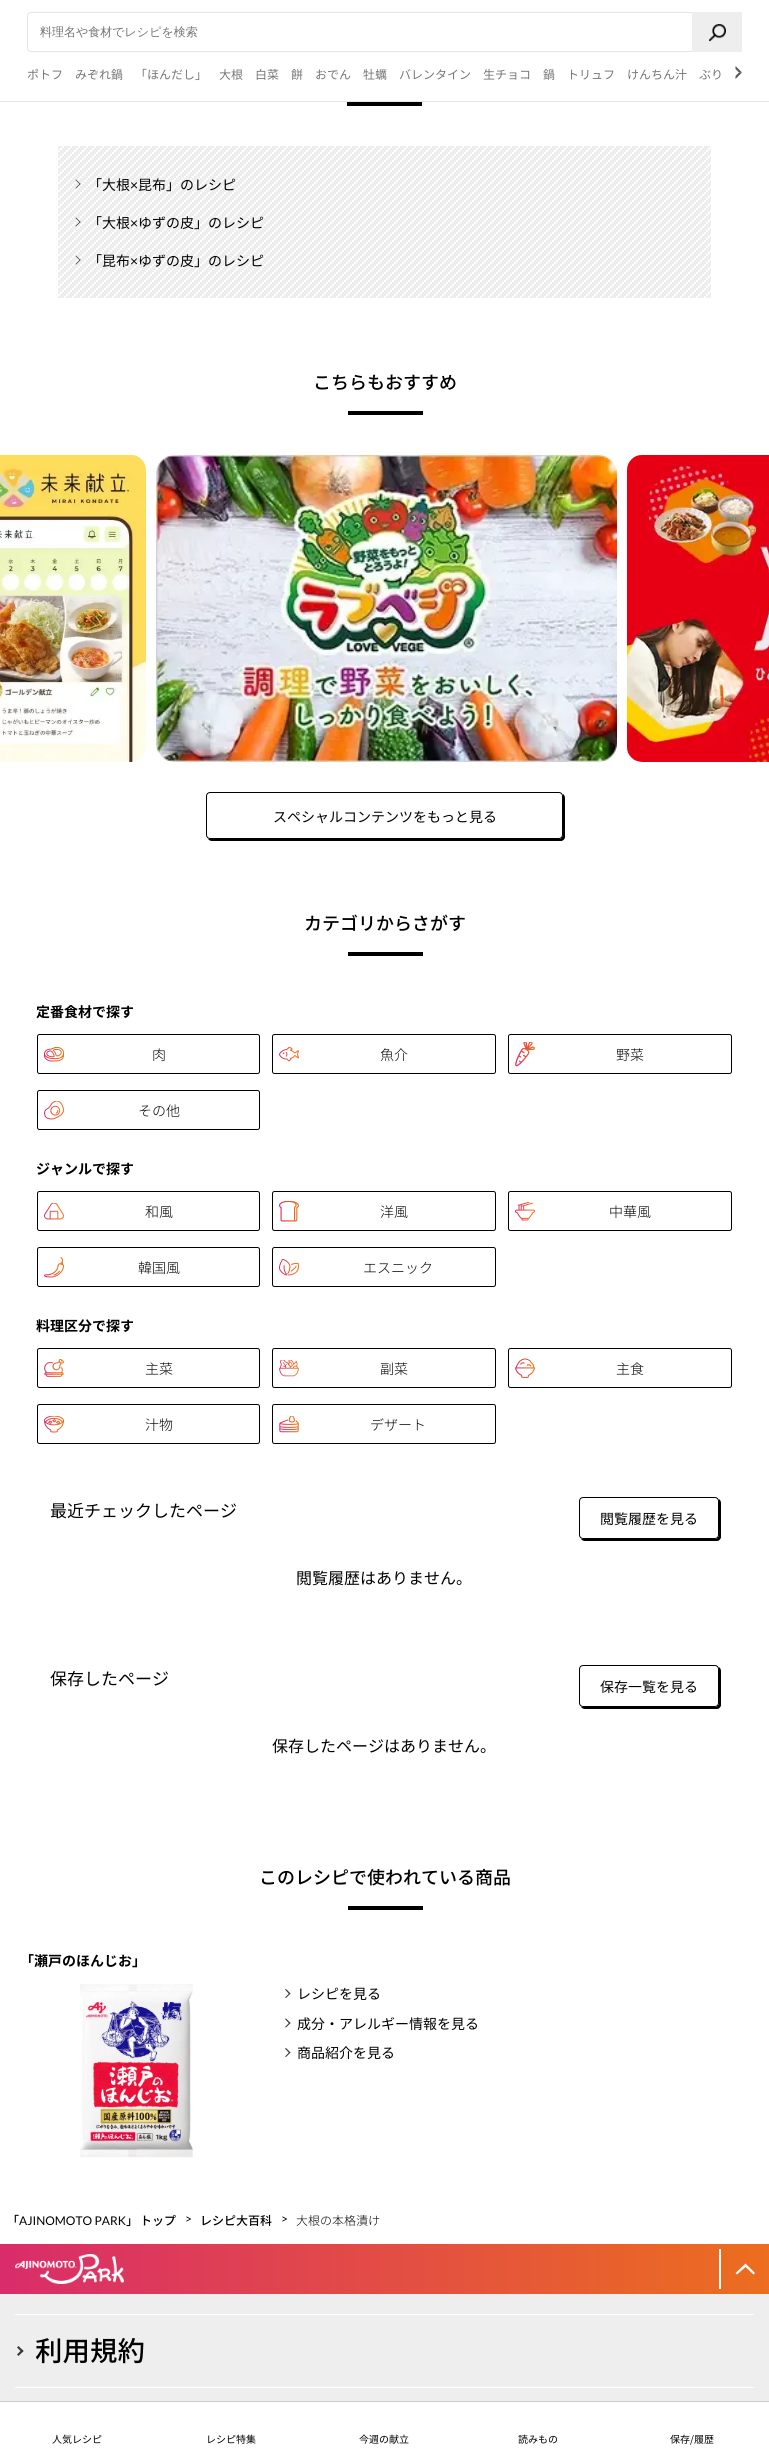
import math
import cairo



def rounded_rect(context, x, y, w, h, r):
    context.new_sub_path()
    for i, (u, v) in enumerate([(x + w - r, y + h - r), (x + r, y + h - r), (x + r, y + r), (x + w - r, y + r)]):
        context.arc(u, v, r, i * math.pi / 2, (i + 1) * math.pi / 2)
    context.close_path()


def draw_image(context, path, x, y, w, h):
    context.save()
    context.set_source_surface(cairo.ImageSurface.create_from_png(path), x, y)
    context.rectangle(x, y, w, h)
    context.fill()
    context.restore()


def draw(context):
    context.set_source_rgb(1, 1, 1)
    context.paint()
    context.set_source_rgb(229 / 255, 229 / 255, 229 / 255)
    context.rectangle(0, 101, 769, 1)
    context.fill()
    rounded_rect(context, 27.5, 12.5, 714, 39, 3.5)
    context.set_line_width(1)
    context.stroke()
    context.set_source_rgb(238 / 255, 238 / 255, 238 / 255)
    context.rectangle(692, 12, 50, 40)
    context.fill()
    draw_image(context, "images/1.png", 709, 24, 17, 18)
    context.set_source_rgb(86 / 255, 86 / 255, 86 / 255)
    context.new_path()
    context.move_to(735.5, 66)
    context.line_to(742, 72.5)
    context.line_to(739, 72.5)
    context.line_to(735.5, 69)
    context.close_path()
    context.fill()
    context.new_path()
    context.move_to(742, 72.5)
    context.line_to(735.5, 79)
    context.line_to(735.5, 76)
    context.line_to(739, 72.5)
    context.close_path()
    context.fill()
    context.set_source_rgb(0, 0, 0)
    context.rectangle(347, 102, 75, 4)
    context.fill()
    draw_image(context, "images/2.png", 58, 146, 653, 152)
    context.set_source_rgb(56 / 255, 56 / 255, 56 / 255)
    context.new_path()
    context.move_to(76, 179.5)
    context.line_to(80.5, 184)
    context.line_to(80, 184.5)
    context.line_to(75.5, 180)
    context.close_path()
    context.fill()
    context.new_path()
    context.move_to(80, 183.5)
    context.line_to(80.5, 184)
    context.line_to(76, 188.5)
    context.line_to(75.5, 188)
    context.close_path()
    context.fill()
    context.new_path()
    context.move_to(76, 217.5)
    context.line_to(80.5, 222)
    context.line_to(80, 222.5)
    context.line_to(75.5, 218)
    context.close_path()
    context.fill()
    context.new_path()
    context.move_to(80, 221.5)
    context.line_to(80.5, 222)
    context.line_to(76, 226.5)
    context.line_to(75.5, 226)
    context.close_path()
    context.fill()
    context.new_path()
    context.move_to(76, 255.5)
    context.line_to(80.5, 260)
    context.line_to(80, 260.5)
    context.line_to(75.5, 256)
    context.close_path()
    context.fill()
    context.new_path()
    context.move_to(80, 259.5)
    context.line_to(80.5, 260)
    context.line_to(76, 264.5)
    context.line_to(75.5, 264)
    context.close_path()
    context.fill()
    context.set_source_rgb(0, 0, 0)
    context.rectangle(348, 411, 75, 4)
    context.fill()
    draw_image(context, "images/3.png", 0, 455, 146, 307)
    draw_image(context, "images/4.png", 156, 455, 461, 307)
    draw_image(context, "images/5.png", 627, 455, 142, 307)
    context.new_path()
    context.move_to(208, 839)
    context.curve_to(209, 840, 210, 841, 212, 841)
    context.line_to(561, 841)
    context.curve_to(563, 841, 565, 839, 565, 837)
    context.line_to(565, 798)
    context.curve_to(565, 796, 564, 795, 563, 794)
    context.line_to(563, 828)
    context.curve_to(563, 831, 564, 839, 559, 839)
    context.close_path()
    context.fill()
    context.set_source_rgb(1, 1, 1)
    rounded_rect(context, 206.5, 792.5, 356, 46, 3.5)
    context.fill_preserve()
    context.set_source_rgb(0, 0, 0)
    context.stroke()
    context.rectangle(348, 952, 75, 4)
    context.fill()
    rounded_rect(context, 37.5, 1034.5, 222, 39, 2)
    context.stroke()
    draw_image(context, "images/6.png", 44, 1047, 20, 15)
    rounded_rect(context, 272.5, 1034.5, 223, 39, 2)
    context.stroke()
    draw_image(context, "images/7.png", 279, 1047, 20, 15)
    rounded_rect(context, 508.5, 1034.5, 223, 39, 2)
    context.stroke()
    draw_image(context, "images/8.png", 515, 1042, 20, 25)
    rounded_rect(context, 37.5, 1090.5, 222, 39, 2)
    context.stroke()
    draw_image(context, "images/9.png", 44, 1101, 20, 19)
    rounded_rect(context, 37.5, 1191.5, 222, 39, 2)
    context.stroke()
    draw_image(context, "images/10.png", 44, 1203, 20, 17)
    rounded_rect(context, 272.5, 1191.5, 223, 39, 2)
    context.stroke()
    draw_image(context, "images/11.png", 279, 1201, 20, 21)
    rounded_rect(context, 508.5, 1191.5, 223, 39, 2)
    context.stroke()
    draw_image(context, "images/12.png", 515, 1202, 20, 19)
    rounded_rect(context, 37.5, 1247.5, 222, 39, 2)
    context.stroke()
    draw_image(context, "images/13.png", 44, 1257, 20, 21)
    rounded_rect(context, 272.5, 1247.5, 223, 39, 2)
    context.stroke()
    draw_image(context, "images/14.png", 279, 1259, 20, 17)
    rounded_rect(context, 37.5, 1348.5, 222, 39, 2)
    context.stroke()
    draw_image(context, "images/15.png", 44, 1359, 20, 18)
    rounded_rect(context, 272.5, 1348.5, 223, 39, 2)
    context.stroke()
    draw_image(context, "images/16.png", 279, 1360, 20, 17)
    rounded_rect(context, 508.5, 1348.5, 223, 39, 2)
    context.stroke()
    draw_image(context, "images/17.png", 515, 1358, 20, 20)
    rounded_rect(context, 37.5, 1404.5, 222, 39, 2)
    context.stroke()
    draw_image(context, "images/18.png", 44, 1416, 20, 17)
    rounded_rect(context, 272.5, 1404.5, 223, 39, 2)
    context.stroke()
    draw_image(context, "images/19.png", 279, 1416, 20, 17)
    context.new_path()
    context.move_to(581, 1539)
    context.curve_to(582, 1540, 583, 1541, 585, 1541)
    context.line_to(717, 1541)
    context.curve_to(719, 1541, 721, 1539, 721, 1537)
    context.line_to(721, 1503)
    context.curve_to(721, 1501, 720, 1500, 719, 1499)
    context.line_to(719, 1529)
    context.curve_to(719, 1532, 720, 1539, 715, 1539)
    context.close_path()
    context.fill()
    context.set_source_rgb(1, 1, 1)
    rounded_rect(context, 579.5, 1497.5, 139, 41, 3.5)
    context.fill_preserve()
    context.set_source_rgb(0, 0, 0)
    context.stroke()
    context.new_path()
    context.move_to(581, 1707)
    context.curve_to(582, 1708, 583, 1709, 585, 1709)
    context.line_to(717, 1709)
    context.curve_to(719, 1709, 721, 1707, 721, 1705)
    context.line_to(721, 1671)
    context.curve_to(721, 1669, 720, 1668, 719, 1667)
    context.line_to(719, 1697)
    context.curve_to(719, 1700, 720, 1707, 715, 1707)
    context.close_path()
    context.fill()
    context.set_source_rgb(1, 1, 1)
    rounded_rect(context, 579.5, 1665.5, 139, 41, 3.5)
    context.fill_preserve()
    context.set_source_rgb(0, 0, 0)
    context.stroke()
    context.rectangle(348, 1906, 75, 4)
    context.fill()
    draw_image(context, "images/20.png", 80, 1984, 113, 174)
    context.set_source_rgb(56 / 255, 56 / 255, 56 / 255)
    context.new_path()
    context.move_to(286, 1989)
    context.line_to(290.5, 1993.5)
    context.line_to(289.5, 1994.5)
    context.line_to(285, 1989.5)
    context.close_path()
    context.fill()
    context.new_path()
    context.move_to(289.5, 1993)
    context.line_to(290.5, 1993.5)
    context.line_to(286, 1998)
    context.line_to(285, 1997.5)
    context.close_path()
    context.fill()
    context.new_path()
    context.move_to(286, 2018.5)
    context.line_to(290.5, 2023)
    context.line_to(289.5, 2024)
    context.line_to(285, 2019)
    context.close_path()
    context.fill()
    context.new_path()
    context.move_to(289.5, 2022.5)
    context.line_to(290.5, 2023)
    context.line_to(286, 2027.5)
    context.line_to(285, 2027)
    context.close_path()
    context.fill()
    context.new_path()
    context.move_to(286, 2048)
    context.line_to(290.5, 2052.5)
    context.line_to(289.5, 2053.5)
    context.line_to(285, 2048.5)
    context.close_path()
    context.fill()
    context.new_path()
    context.move_to(289.5, 2052)
    context.line_to(290.5, 2052.5)
    context.line_to(286, 2057)
    context.line_to(285, 2056.5)
    context.close_path()
    context.fill()
    context.set_source_rgb(238 / 255, 238 / 255, 238 / 255)
    context.rectangle(0, 2294, 769, 107)
    context.fill()
    gradient = cairo.LinearGradient(0, 2269, 769, 2269)
    gradient.add_color_stop_rgba(0, 217 / 255, 44 / 255, 107 / 255, 1)
    gradient.add_color_stop_rgba(1, 236 / 255, 110 / 255, 30 / 255, 1)
    context.set_source(gradient)
    context.rectangle(0, 2244, 769, 50)
    context.fill()
    draw_image(context, "images/21.png", 15, 2254, 109, 30)
    context.set_source_rgb(1, 1, 1)
    context.rectangle(719, 2249, 2, 40)
    context.fill()
    context.new_path()
    context.move_to(745.5, 2263.5)
    context.line_to(735.5, 2273)
    context.line_to(737, 2274.5)
    context.line_to(745.5, 2267)
    context.line_to(753.5, 2274.5)
    context.line_to(755, 2273)
    context.close_path()
    context.fill()
    context.rectangle(15, 2314, 739, 1)
    context.fill()
    context.rectangle(15, 2387, 739, 1)
    context.fill()
    context.set_source_rgb(56 / 255, 56 / 255, 56 / 255)
    context.new_path()
    context.move_to(18.5, 2346)
    context.line_to(23.5, 2351)
    context.line_to(22, 2352.5)
    context.line_to(17, 2347.5)
    context.close_path()
    context.fill()
    context.new_path()
    context.move_to(22, 2349.5)
    context.line_to(23.5, 2351)
    context.line_to(18.5, 2356)
    context.line_to(17, 2354.5)
    context.close_path()
    context.fill()
    context.set_source_rgb(204 / 255, 204 / 255, 204 / 255)
    context.rectangle(0, 2401, 769, 1)
    context.fill()
    context.select_font_face("WenQuanYi Zen Hei Medium")
    context.set_font_size(12)
    context.set_source_rgb(117 / 255, 117 / 255, 117 / 255)
    context.move_to(40, 36)
    context.show_text("料理名や食材でレシピを検索")
    context.select_font_face("Noto Sans JP")
    context.move_to(27, 79)
    context.show_text("ポトフ")
    context.move_to(75, 79)
    context.show_text("みぞれ鍋")
    context.move_to(135, 79)
    context.show_text("「ほんだし」")
    context.move_to(219, 79)
    context.show_text("大根")
    context.move_to(255, 79)
    context.show_text("白菜")
    context.move_to(291, 79)
    context.show_text("餅")
    context.move_to(315, 79)
    context.show_text("おでん")
    context.move_to(363, 79)
    context.show_text("牡蠣")
    context.move_to(399, 79)
    context.show_text("バレンタイン")
    context.move_to(483, 79)
    context.show_text("生チョコ")
    context.move_to(543, 79)
    context.show_text("鍋")
    context.move_to(567, 79)
    context.show_text("トリュフ")
    context.move_to(627, 79)
    context.show_text("けんちん汁")
    context.move_to(699, 79)
    context.show_text("ぶり")
    context.set_font_size(14)
    context.set_source_rgb(0, 0, 0)
    context.move_to(88, 190)
    context.show_text("「大根")
    context.select_font_face("Lato")
    context.move_to(130, 190)
    context.show_text("×")
    context.select_font_face("Noto Sans JP")
    context.move_to(138, 190)
    context.show_text("昆布」のレシピ")
    context.move_to(88, 228)
    context.show_text("「大根")
    context.select_font_face("Lato")
    context.move_to(130, 228)
    context.show_text("×")
    context.select_font_face("Noto Sans JP")
    context.move_to(138, 228)
    context.show_text("ゆずの皮」のレシピ")
    context.move_to(88, 266)
    context.show_text("「昆布")
    context.select_font_face("Lato")
    context.move_to(130, 266)
    context.show_text("×")
    context.select_font_face("Noto Sans JP")
    context.move_to(138, 266)
    context.show_text("ゆずの皮」のレシピ")
    context.select_font_face("Noto Sans JP Medium")
    context.set_font_size(18)
    context.move_to(313, 389)
    context.show_text("こちらもおすすめ")
    context.select_font_face("Noto Sans JP")
    context.set_font_size(14)
    context.move_to(273, 822)
    context.show_text("スペシャルコンテンツをもっと見る")
    context.select_font_face("Noto Sans JP Medium")
    context.set_font_size(18)
    context.move_to(304, 930)
    context.show_text("カテゴリからさがす")
    context.select_font_face("Noto Sans JP", cairo.FontSlant.NORMAL, cairo.FontWeight.BOLD)
    context.set_font_size(14)
    context.move_to(36, 1017)
    context.show_text("定番食材で探す")
    context.select_font_face("Noto Sans JP Light")
    context.move_to(152, 1060)
    context.show_text("肉")
    context.move_to(380, 1060)
    context.show_text("魚介")
    context.move_to(616, 1060)
    context.show_text("野菜")
    context.move_to(138, 1116)
    context.show_text("その他")
    context.select_font_face("Noto Sans JP", cairo.FontSlant.NORMAL, cairo.FontWeight.BOLD)
    context.move_to(36, 1174)
    context.show_text("ジャンルで探す")
    context.select_font_face("Noto Sans JP Light")
    context.move_to(145, 1217)
    context.show_text("和風")
    context.move_to(380, 1217)
    context.show_text("洋風")
    context.move_to(609, 1217)
    context.show_text("中華風")
    context.move_to(138, 1273)
    context.show_text("韓国風")
    context.move_to(363, 1273)
    context.show_text("エスニック")
    context.select_font_face("Noto Sans JP", cairo.FontSlant.NORMAL, cairo.FontWeight.BOLD)
    context.move_to(36, 1331)
    context.show_text("料理区分で探す")
    context.select_font_face("Noto Sans JP Light")
    context.move_to(145, 1374)
    context.show_text("主菜")
    context.move_to(380, 1374)
    context.show_text("副菜")
    context.move_to(616, 1374)
    context.show_text("主食")
    context.move_to(145, 1430)
    context.show_text("汁物")
    context.move_to(370, 1430)
    context.show_text("デザート")
    context.select_font_face("Noto Sans JP")
    context.set_font_size(17)
    context.move_to(50, 1517)
    context.show_text("最近チェックしたページ")
    context.set_font_size(14)
    context.move_to(600, 1524)
    context.show_text("閲覧履歴を見る")
    context.set_font_size(16)
    context.move_to(296, 1584)
    context.show_text("閲覧履歴はありません。")
    context.set_font_size(17)
    context.move_to(50, 1685)
    context.show_text("保存したページ")
    context.set_font_size(14)
    context.move_to(600, 1692)
    context.show_text("保存一覧を見る")
    context.set_font_size(16)
    context.move_to(272, 1752)
    context.show_text("保存したページはありません。")
    context.select_font_face("Noto Sans JP Medium")
    context.set_font_size(18)
    context.move_to(259, 1884)
    context.show_text("このレシピで使われている商品")
    context.select_font_face("Noto Sans JP", cairo.FontSlant.NORMAL, cairo.FontWeight.BOLD)
    context.set_font_size(14)
    context.move_to(20, 1966)
    context.show_text("「瀬戸のほんじお」")
    context.select_font_face("Noto Sans JP")
    context.move_to(297, 1999)
    context.show_text("レシピを見る")
    context.move_to(297, 2029)
    context.show_text("成分・アレルギー情報を見る")
    context.move_to(297, 2058)
    context.show_text("商品紹介を見る")
    context.select_font_face("Noto Sans JP Medium")
    context.set_font_size(12)
    context.move_to(7, 2225)
    context.show_text("「")
    context.select_font_face("Lato")
    context.move_to(19, 2225)
    context.show_text("AJINOMOTO PARK")
    context.select_font_face("Noto Sans JP Medium")
    context.move_to(126, 2225)
    context.show_text("」")
    context.move_to(140, 2225)
    context.show_text("トップ")
    context.select_font_face("Lato")
    context.move_to(185, 2223)
    context.show_text(">")
    context.select_font_face("Noto Sans JP Medium")
    context.move_to(200, 2225)
    context.show_text("レシピ大百科")
    context.select_font_face("Lato")
    context.move_to(281, 2223)
    context.show_text(">")
    context.select_font_face("Noto Sans JP Light")
    context.move_to(296, 2225)
    context.show_text("大根の本格漬け")
    context.select_font_face("Noto Sans JP Medium")
    context.set_font_size(27.5)
    context.move_to(35, 2361)
    context.show_text("利用規約")
    context.select_font_face("Noto Sans JP")
    context.set_font_size(10)
    context.move_to(52, 2443)
    context.show_text("人気レシピ")
    context.move_to(206, 2443)
    context.show_text("レシピ特集")
    context.move_to(359, 2443)
    context.show_text("今週の献立")
    context.move_to(518, 2443)
    context.show_text("読みもの")
    context.move_to(670, 2443)
    context.show_text("保存/履歴")


surface = cairo.ImageSurface(cairo.Format.RGB24, 769, 2452)
context = cairo.Context(surface)
options = cairo.FontOptions()
options.set_hint_metrics(cairo.HintMetrics.OFF)
options.set_hint_style(cairo.HintStyle.NONE)
context.set_font_options(options)
context.set_miter_limit(4)
draw(context)
surface.write_to_png("out.png")
